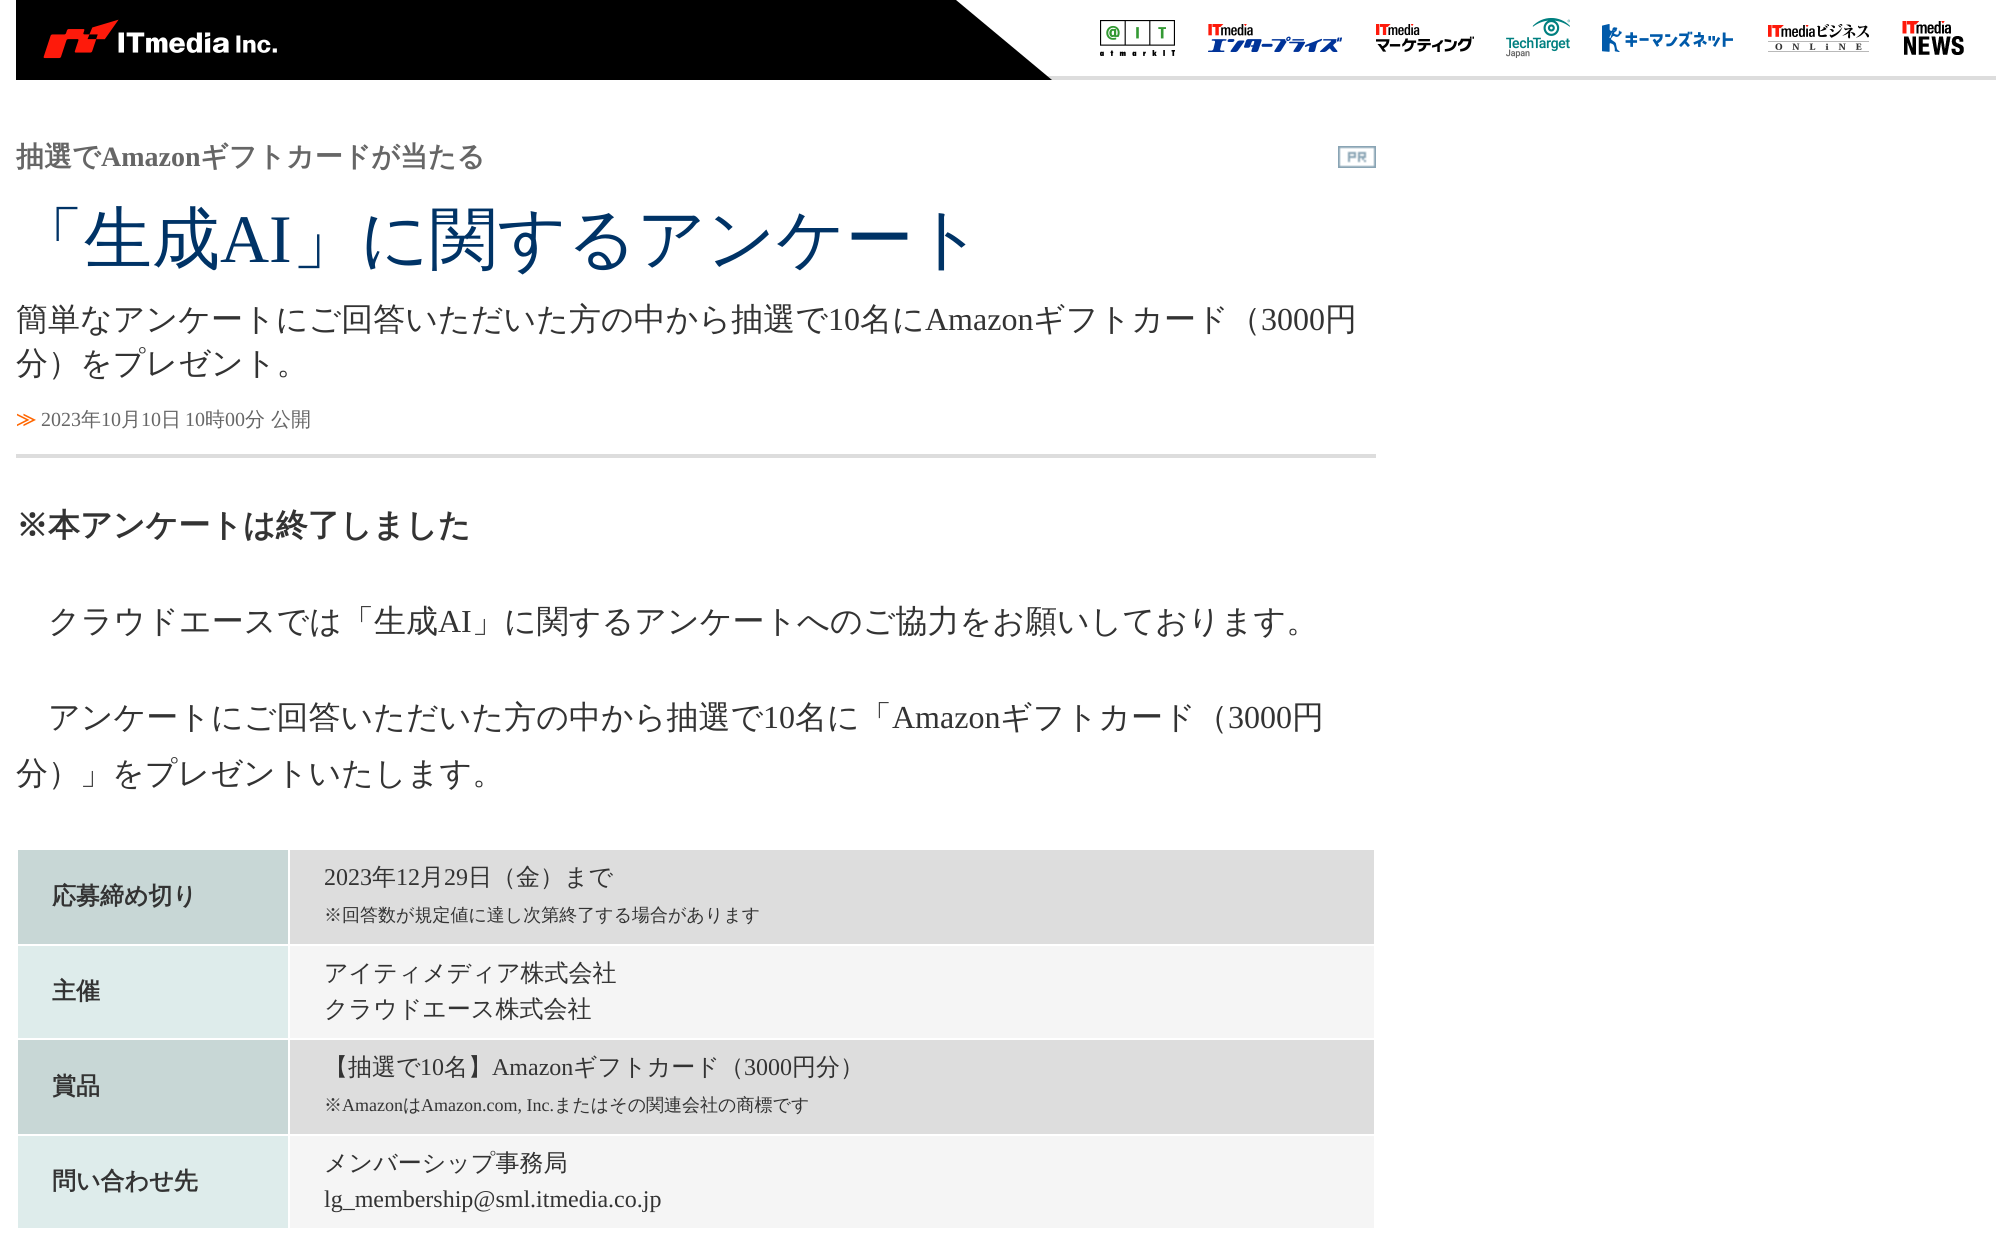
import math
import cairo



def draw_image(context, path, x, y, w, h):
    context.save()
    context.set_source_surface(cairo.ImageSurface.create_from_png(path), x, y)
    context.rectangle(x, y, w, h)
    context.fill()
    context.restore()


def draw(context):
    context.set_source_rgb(1, 1, 1)
    context.paint()
    context.set_source_rgb(0, 0, 0)
    context.rectangle(16, 0, 940, 80)
    context.fill()
    draw_image(context, "images/1.png", 43, 19, 234, 40)
    context.set_source_rgb(221 / 255, 221 / 255, 221 / 255)
    context.rectangle(1047, 76, 949, 4)
    context.fill()
    context.set_source_rgb(0, 0, 0)
    context.new_path()
    context.move_to(1052, 80)
    context.line_to(956, 80)
    context.line_to(956, 0)
    context.close_path()
    context.fill()
    draw_image(context, "images/2.png", 1100, 20, 75, 36)
    draw_image(context, "images/3.png", 1208, 24, 134, 28)
    draw_image(context, "images/4.png", 1376, 24, 98, 28)
    draw_image(context, "images/5.png", 1506, 18, 64, 40)
    draw_image(context, "images/6.png", 1602, 24, 131, 28)
    draw_image(context, "images/7.png", 1768, 24, 101, 28)
    draw_image(context, "images/8.png", 1902, 21, 62, 34)
    draw_image(context, "images/9.png", 1338, 146, 38, 22)
    context.set_source_rgb(221 / 255, 221 / 255, 221 / 255)
    context.rectangle(16, 454, 1360, 4)
    context.fill()
    context.rectangle(290, 850, 1084, 94)
    context.fill()
    context.set_source_rgb(200 / 255, 215 / 255, 214 / 255)
    context.rectangle(18, 850, 270, 94)
    context.fill()
    context.set_source_rgb(245 / 255, 245 / 255, 245 / 255)
    context.rectangle(290, 946, 1084, 92)
    context.fill()
    context.set_source_rgb(222 / 255, 236 / 255, 235 / 255)
    context.rectangle(18, 946, 270, 92)
    context.fill()
    context.set_source_rgb(221 / 255, 221 / 255, 221 / 255)
    context.rectangle(290, 1040, 1084, 94)
    context.fill()
    context.set_source_rgb(200 / 255, 215 / 255, 214 / 255)
    context.rectangle(18, 1040, 270, 94)
    context.fill()
    context.set_source_rgb(245 / 255, 245 / 255, 245 / 255)
    context.rectangle(290, 1136, 1084, 92)
    context.fill()
    context.set_source_rgb(222 / 255, 236 / 255, 235 / 255)
    context.rectangle(18, 1136, 270, 92)
    context.fill()
    context.select_font_face("WenQuanYi Zen Hei", cairo.FontSlant.NORMAL, cairo.FontWeight.BOLD)
    context.set_font_size(28)
    context.set_source_rgb(102 / 255, 102 / 255, 102 / 255)
    context.move_to(16, 166)
    context.show_text("抽選で")
    context.select_font_face("Liberation Serif", cairo.FontSlant.NORMAL, cairo.FontWeight.BOLD)
    context.move_to(101, 166)
    context.show_text("Amazon")
    context.select_font_face("WenQuanYi Zen Hei", cairo.FontSlant.NORMAL, cairo.FontWeight.BOLD)
    context.move_to(200, 166)
    context.show_text("ギフトカードが当たる")
    context.select_font_face("WenQuanYi Zen Hei Medium")
    context.set_font_size(68)
    context.set_source_rgb(0, 51 / 255, 102 / 255)
    context.move_to(16, 262)
    context.show_text("「生成")
    context.select_font_face("Liberation Serif")
    context.move_to(220, 262)
    context.show_text("AI")
    context.select_font_face("WenQuanYi Zen Hei Medium")
    context.move_to(292, 262)
    context.show_text("」に関するアンケート")
    context.set_font_size(32)
    context.set_source_rgb(51 / 255, 51 / 255, 51 / 255)
    context.move_to(16, 330)
    context.show_text("簡単なアンケートにご回答いただいた方の中から抽選で")
    context.select_font_face("Liberation Serif")
    context.move_to(828, 330)
    context.show_text("10")
    context.select_font_face("WenQuanYi Zen Hei Medium")
    context.move_to(860, 330)
    context.show_text("名に")
    context.select_font_face("Liberation Serif")
    context.move_to(925, 330)
    context.show_text("Amazon")
    context.select_font_face("WenQuanYi Zen Hei Medium")
    context.move_to(1033, 330)
    context.show_text("ギフトカード（")
    context.select_font_face("Liberation Serif")
    context.move_to(1261, 330)
    context.show_text("3000")
    context.select_font_face("WenQuanYi Zen Hei Medium")
    context.move_to(1325, 330)
    context.show_text("円")
    context.move_to(16, 374)
    context.show_text("分）をプレゼント。")
    context.select_font_face("WenQuanYi Zen Hei", cairo.FontSlant.NORMAL, cairo.FontWeight.BOLD)
    context.set_font_size(20)
    context.set_source_rgb(1, 102 / 255, 0)
    context.move_to(16, 426)
    context.show_text("≫")
    context.select_font_face("Liberation Serif")
    context.set_source_rgb(102 / 255, 102 / 255, 102 / 255)
    context.move_to(41, 426)
    context.show_text("2023")
    context.select_font_face("WenQuanYi Zen Hei Medium")
    context.move_to(81, 426)
    context.show_text("年")
    context.select_font_face("Liberation Serif")
    context.move_to(101, 426)
    context.show_text("10")
    context.select_font_face("WenQuanYi Zen Hei Medium")
    context.move_to(121, 426)
    context.show_text("月")
    context.select_font_face("Liberation Serif")
    context.move_to(141, 426)
    context.show_text("10")
    context.select_font_face("WenQuanYi Zen Hei Medium")
    context.move_to(161, 426)
    context.show_text("日")
    context.select_font_face("Liberation Serif")
    context.move_to(185, 426)
    context.show_text("10")
    context.select_font_face("WenQuanYi Zen Hei Medium")
    context.move_to(205, 426)
    context.show_text("時")
    context.select_font_face("Liberation Serif")
    context.move_to(225, 426)
    context.show_text("00")
    context.select_font_face("WenQuanYi Zen Hei Medium")
    context.move_to(245, 426)
    context.show_text("分 公開")
    context.select_font_face("WenQuanYi Zen Hei", cairo.FontSlant.NORMAL, cairo.FontWeight.BOLD)
    context.set_font_size(32)
    context.set_source_rgb(51 / 255, 51 / 255, 51 / 255)
    context.move_to(16, 536)
    context.show_text("※本アンケートは終了しました")
    context.select_font_face("WenQuanYi Zen Hei Medium")
    context.move_to(48, 632)
    context.show_text("クラウドエースでは「生成")
    context.select_font_face("Liberation Serif")
    context.move_to(438, 632)
    context.show_text("AI")
    context.select_font_face("WenQuanYi Zen Hei Medium")
    context.move_to(472, 632)
    context.show_text("」に関するアンケートへのご協力をお願いしております。")
    context.move_to(48, 728)
    context.show_text("アンケートにご回答いただいた方の中から抽選で")
    context.select_font_face("Liberation Serif")
    context.move_to(763, 728)
    context.show_text("10")
    context.select_font_face("WenQuanYi Zen Hei Medium")
    context.move_to(795, 728)
    context.show_text("名に「")
    context.select_font_face("Liberation Serif")
    context.move_to(892, 728)
    context.show_text("Amazon")
    context.select_font_face("WenQuanYi Zen Hei Medium")
    context.move_to(1000, 728)
    context.show_text("ギフトカード（")
    context.select_font_face("Liberation Serif")
    context.move_to(1228, 728)
    context.show_text("3000")
    context.select_font_face("WenQuanYi Zen Hei Medium")
    context.move_to(1292, 728)
    context.show_text("円")
    context.move_to(16, 784)
    context.show_text("分）」をプレゼントいたします。")
    context.select_font_face("WenQuanYi Zen Hei", cairo.FontSlant.NORMAL, cairo.FontWeight.BOLD)
    context.set_font_size(24)
    context.move_to(52, 904)
    context.show_text("応募締め切り")
    context.select_font_face("Liberation Serif")
    context.move_to(324, 885)
    context.show_text("2023")
    context.select_font_face("WenQuanYi Zen Hei Medium")
    context.move_to(372, 885)
    context.show_text("年")
    context.select_font_face("Liberation Serif")
    context.move_to(396, 885)
    context.show_text("12")
    context.select_font_face("WenQuanYi Zen Hei Medium")
    context.move_to(420, 885)
    context.show_text("月")
    context.select_font_face("Liberation Serif")
    context.move_to(444, 885)
    context.show_text("29")
    context.select_font_face("WenQuanYi Zen Hei Medium")
    context.move_to(468, 885)
    context.show_text("日（金）まで")
    context.set_font_size(18)
    context.move_to(324, 921)
    context.show_text("※回答数が規定値に達し次第終了する場合があります")
    context.select_font_face("WenQuanYi Zen Hei", cairo.FontSlant.NORMAL, cairo.FontWeight.BOLD)
    context.set_font_size(24)
    context.move_to(52, 999)
    context.show_text("主催")
    context.select_font_face("WenQuanYi Zen Hei Medium")
    context.move_to(324, 981)
    context.show_text("アイティメディア株式会社")
    context.move_to(324, 1017)
    context.show_text("クラウドエース株式会社")
    context.select_font_face("WenQuanYi Zen Hei", cairo.FontSlant.NORMAL, cairo.FontWeight.BOLD)
    context.move_to(52, 1094)
    context.show_text("賞品")
    context.select_font_face("WenQuanYi Zen Hei Medium")
    context.move_to(324, 1075)
    context.show_text("【抽選で")
    context.select_font_face("Liberation Serif")
    context.move_to(420, 1075)
    context.show_text("10")
    context.select_font_face("WenQuanYi Zen Hei Medium")
    context.move_to(444, 1075)
    context.show_text("名】")
    context.select_font_face("Liberation Serif")
    context.move_to(492, 1075)
    context.show_text("Amazon")
    context.select_font_face("WenQuanYi Zen Hei Medium")
    context.move_to(573, 1075)
    context.show_text("ギフトカード（")
    context.select_font_face("Liberation Serif")
    context.move_to(744, 1075)
    context.show_text("3000")
    context.select_font_face("WenQuanYi Zen Hei Medium")
    context.move_to(792, 1075)
    context.show_text("円分）")
    context.set_font_size(18)
    context.move_to(324, 1111)
    context.show_text("※")
    context.select_font_face("Liberation Serif")
    context.move_to(342, 1111)
    context.show_text("Amazon")
    context.select_font_face("WenQuanYi Zen Hei Medium")
    context.move_to(403, 1111)
    context.show_text("は")
    context.select_font_face("Liberation Serif")
    context.move_to(421, 1111)
    context.show_text("Amazon.com, Inc.")
    context.select_font_face("WenQuanYi Zen Hei Medium")
    context.move_to(554, 1111)
    context.show_text("またはその関連会社の商標です")
    context.select_font_face("WenQuanYi Zen Hei", cairo.FontSlant.NORMAL, cairo.FontWeight.BOLD)
    context.set_font_size(24)
    context.move_to(52, 1189)
    context.show_text("問い合わせ先")
    context.select_font_face("WenQuanYi Zen Hei Medium")
    context.move_to(324, 1171)
    context.show_text("メンバーシップ事務局")
    context.select_font_face("Liberation Serif")
    context.move_to(324, 1207)
    context.show_text("lg_membership@sml.itmedia.co.jp")


surface = cairo.ImageSurface(cairo.Format.RGB24, 2011, 1252)
context = cairo.Context(surface)
options = cairo.FontOptions()
options.set_hint_metrics(cairo.HintMetrics.OFF)
options.set_hint_style(cairo.HintStyle.NONE)
context.set_font_options(options)
context.set_miter_limit(4)
draw(context)
surface.write_to_png("out.png")
